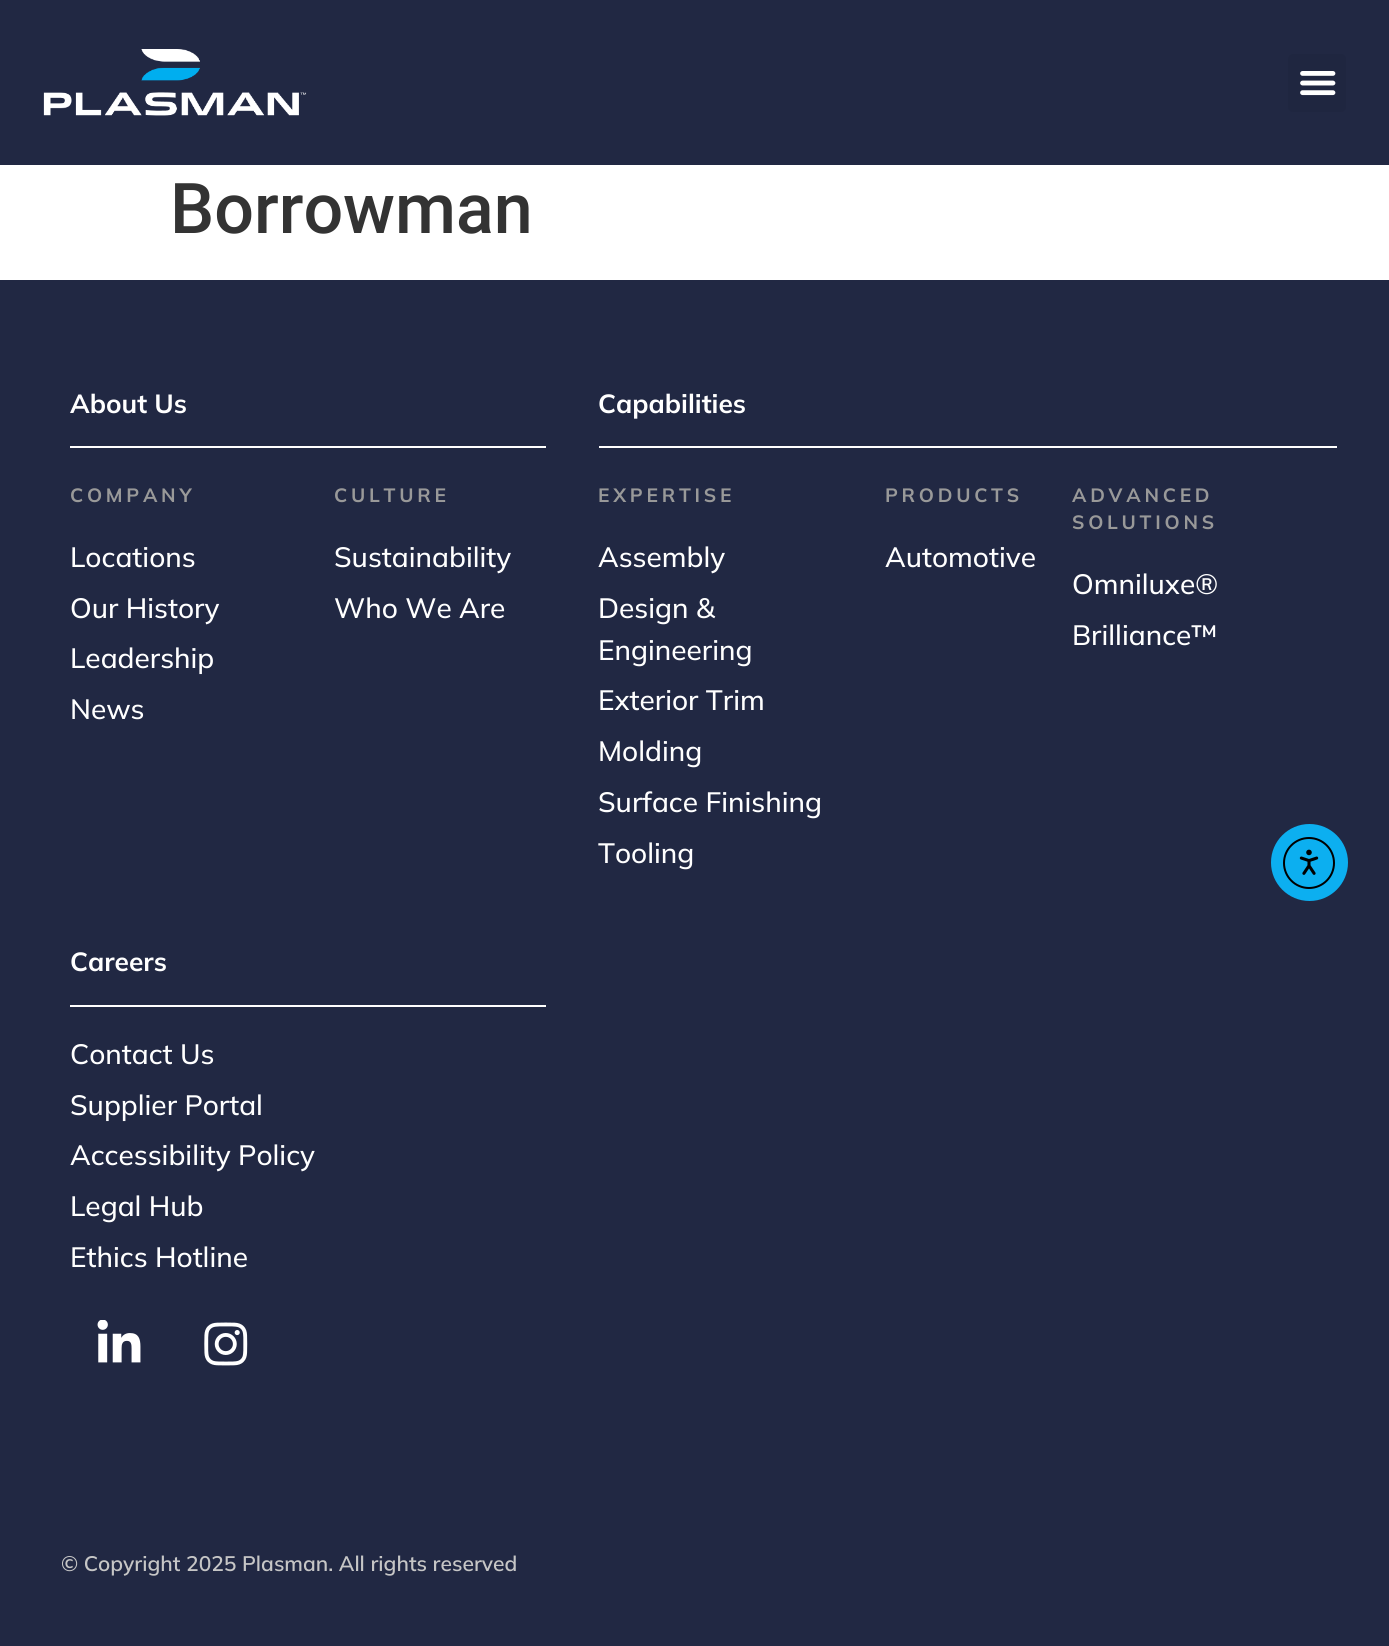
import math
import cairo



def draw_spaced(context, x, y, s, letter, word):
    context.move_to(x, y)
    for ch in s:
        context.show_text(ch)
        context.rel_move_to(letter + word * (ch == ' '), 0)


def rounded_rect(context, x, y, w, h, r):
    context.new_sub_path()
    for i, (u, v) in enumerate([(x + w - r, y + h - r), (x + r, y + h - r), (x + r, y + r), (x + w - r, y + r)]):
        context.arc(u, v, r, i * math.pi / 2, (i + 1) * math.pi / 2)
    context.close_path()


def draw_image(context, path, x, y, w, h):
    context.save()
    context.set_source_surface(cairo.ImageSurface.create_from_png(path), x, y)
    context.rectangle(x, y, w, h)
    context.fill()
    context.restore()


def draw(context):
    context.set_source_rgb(1, 1, 1)
    context.paint()
    context.set_source_rgb(33 / 255, 40 / 255, 67 / 255)
    context.rectangle(0, 0, 1389, 165)
    context.fill()
    draw_image(context, "images/1.png", 43, 49, 264, 67)
    context.set_source_rgb(31 / 255, 38 / 255, 64 / 255)
    rounded_rect(context, 1288, 54, 58, 58, 5)
    context.fill()
    draw_image(context, "images/2.png", 1300, 71, 36, 25)
    context.set_source_rgb(33 / 255, 40 / 255, 67 / 255)
    context.rectangle(0, 280, 1389, 1366)
    context.fill()
    context.set_source_rgb(1, 1, 1)
    context.rectangle(70, 446, 476, 2)
    context.fill()
    context.rectangle(599, 446, 738, 2)
    context.fill()
    context.rectangle(70, 1005, 476, 2)
    context.fill()
    draw_image(context, "images/3.png", 97, 1320, 44, 43)
    draw_image(context, "images/4.png", 204, 1322, 44, 44)
    context.set_source_rgb(12 / 255, 175 / 255, 240 / 255)
    context.arc(1309.5, 862.5, 38.5, 0, 2 * math.pi)
    context.fill()
    context.arc(1309, 863, 25, 0, 2 * math.pi)
    context.set_source_rgb(0, 0, 0)
    context.stroke()
    draw_image(context, "images/5.png", 1299, 849, 20, 26)
    context.select_font_face("Roboto Medium")
    context.set_font_size(70)
    context.set_source_rgb(51 / 255, 51 / 255, 51 / 255)
    context.move_to(170, 233)
    context.show_text("Borrowman")
    context.select_font_face("Mulish", cairo.FontSlant.NORMAL, cairo.FontWeight.BOLD)
    context.set_font_size(26.25)
    context.set_source_rgb(1, 1, 1)
    context.move_to(70, 413)
    context.show_text("About Us")
    context.set_font_size(19.25)
    context.set_source_rgb(153 / 255, 153 / 255, 153 / 255)
    draw_spaced(context, 70, 502, "COMPANY", 3.75, 0)
    context.select_font_face("Mulish Medium")
    context.set_font_size(28)
    context.set_source_rgb(1, 1, 1)
    context.move_to(70, 567)
    context.show_text("Locations")
    context.move_to(70, 618)
    context.show_text("Our History")
    context.move_to(70, 668)
    context.show_text("Leadership")
    context.move_to(70, 719)
    context.show_text("News")
    context.select_font_face("Mulish", cairo.FontSlant.NORMAL, cairo.FontWeight.BOLD)
    context.set_font_size(19.25)
    context.set_source_rgb(153 / 255, 153 / 255, 153 / 255)
    draw_spaced(context, 334, 502, "CULTURE", 3.75, 0)
    context.select_font_face("Mulish Medium")
    context.set_font_size(28)
    context.set_source_rgb(1, 1, 1)
    context.move_to(334, 567)
    context.show_text("Sustainability")
    context.move_to(334, 618)
    context.show_text("Who We Are")
    context.select_font_face("Mulish", cairo.FontSlant.NORMAL, cairo.FontWeight.BOLD)
    context.set_font_size(26.25)
    context.move_to(598, 413)
    context.show_text("Capabilities")
    context.set_font_size(19.25)
    context.set_source_rgb(153 / 255, 153 / 255, 153 / 255)
    draw_spaced(context, 598, 502, "EXPERTISE", 3.75, 0)
    context.select_font_face("Mulish Medium")
    context.set_font_size(28)
    context.set_source_rgb(1, 1, 1)
    context.move_to(598, 567)
    context.show_text("Assembly")
    context.move_to(598, 618)
    context.show_text("Design &")
    context.move_to(598, 660)
    context.show_text("Engineering")
    context.move_to(598, 710)
    context.show_text("Exterior Trim")
    context.move_to(598, 761)
    context.show_text("Molding")
    context.move_to(598, 812)
    context.show_text("Surface Finishing")
    context.move_to(598, 863)
    context.show_text("Tooling")
    context.select_font_face("Mulish", cairo.FontSlant.NORMAL, cairo.FontWeight.BOLD)
    context.set_font_size(19.25)
    context.set_source_rgb(153 / 255, 153 / 255, 153 / 255)
    draw_spaced(context, 885, 502, "PRODUCTS", 3.75, 0)
    context.select_font_face("Mulish Medium")
    context.set_font_size(28)
    context.set_source_rgb(1, 1, 1)
    context.move_to(885, 567)
    context.show_text("Automotive")
    context.select_font_face("Mulish", cairo.FontSlant.NORMAL, cairo.FontWeight.BOLD)
    context.set_font_size(19.25)
    context.set_source_rgb(153 / 255, 153 / 255, 153 / 255)
    draw_spaced(context, 1072, 502, "ADVANCED", 3.75, 0)
    draw_spaced(context, 1072, 529, "SOLUTIONS", 3.75, 0)
    context.select_font_face("Mulish Medium")
    context.set_font_size(28)
    context.set_source_rgb(1, 1, 1)
    context.move_to(1072, 594)
    context.show_text("Omniluxe®")
    context.move_to(1072, 645)
    context.show_text("Brilliance™")
    context.select_font_face("Mulish", cairo.FontSlant.NORMAL, cairo.FontWeight.BOLD)
    context.set_font_size(26.25)
    context.move_to(70, 971)
    context.show_text("Careers")
    context.select_font_face("Mulish Medium")
    context.set_font_size(28)
    context.move_to(70, 1064)
    context.show_text("Contact Us")
    context.move_to(70, 1115)
    context.show_text("Supplier Portal")
    context.move_to(70, 1165)
    context.show_text("Accessibility Policy")
    context.move_to(70, 1216)
    context.show_text("Legal Hub")
    context.move_to(70, 1267)
    context.show_text("Ethics Hotline")
    context.select_font_face("Mulish SemiBold")
    context.set_font_size(21)
    context.set_source_rgb(198 / 255, 198 / 255, 198 / 255)
    context.move_to(61, 1571)
    context.show_text("© Copyright 2025 Plasman. All rights reserved")


surface = cairo.ImageSurface(cairo.Format.RGB24, 1389, 1646)
context = cairo.Context(surface)
options = cairo.FontOptions()
options.set_hint_metrics(cairo.HintMetrics.OFF)
options.set_hint_style(cairo.HintStyle.NONE)
context.set_font_options(options)
context.set_miter_limit(4)
draw(context)
surface.write_to_png("out.png")
